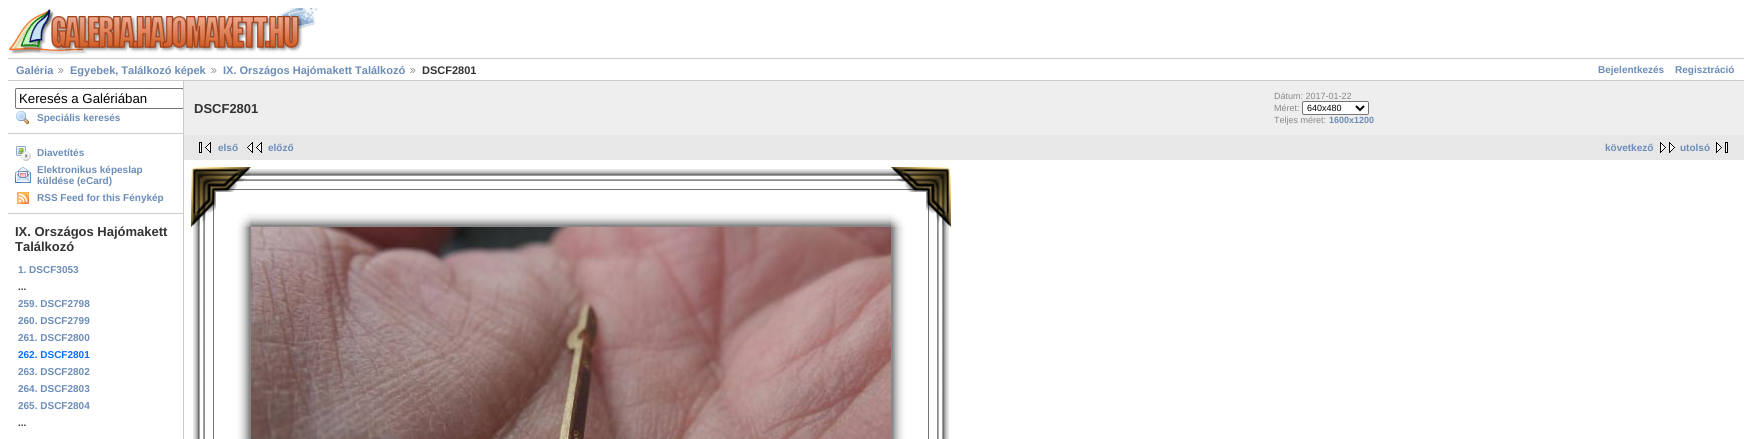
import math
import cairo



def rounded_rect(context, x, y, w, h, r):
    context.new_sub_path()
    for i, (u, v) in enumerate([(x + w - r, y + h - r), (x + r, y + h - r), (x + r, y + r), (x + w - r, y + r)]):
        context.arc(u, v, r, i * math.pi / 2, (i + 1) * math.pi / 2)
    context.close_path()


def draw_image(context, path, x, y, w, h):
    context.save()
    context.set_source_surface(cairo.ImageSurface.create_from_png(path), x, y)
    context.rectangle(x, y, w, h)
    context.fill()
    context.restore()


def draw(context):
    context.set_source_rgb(1, 1, 1)
    context.paint()
    draw_image(context, "images/1.png", 9, 8, 309, 48)
    context.set_source_rgb(204 / 255, 204 / 255, 204 / 255)
    context.rectangle(8, 58, 1736, 1)
    context.fill()
    context.rectangle(8, 80, 1736, 1)
    context.fill()
    draw_image(context, "images/2.png", 58, 68, 6, 5)
    draw_image(context, "images/2.png", 211, 68, 6, 5)
    draw_image(context, "images/2.png", 410, 68, 6, 5)
    context.rectangle(183, 81, 1, 358)
    context.fill()
    context.rectangle(8, 133, 175, 1)
    context.fill()
    context.save()
    context.rectangle(8, 81, 175, 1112)
    context.clip()
    rounded_rect(context, 15.5, 88.5, 168, 20, 1.5)
    context.set_source_rgb(118 / 255, 118 / 255, 118 / 255)
    context.set_line_width(1)
    context.stroke()
    context.restore()
    draw_image(context, "images/3.png", 16, 111, 13, 14)
    context.rectangle(8, 213, 175, 1)
    context.fill()
    draw_image(context, "images/4.png", 16, 146, 15, 15)
    draw_image(context, "images/5.png", 15, 167, 16, 16)
    draw_image(context, "images/6.png", 17, 192, 12, 12)
    context.set_source_rgb(238 / 255, 238 / 255, 238 / 255)
    context.rectangle(184, 81, 1560, 54)
    context.fill()
    context.set_source_rgb(1, 1, 1)
    rounded_rect(context, 1302.5, 101.5, 66, 13, 1.5)
    context.fill_preserve()
    context.set_source_rgb(118 / 255, 118 / 255, 118 / 255)
    context.set_line_width(1)
    context.stroke()
    context.new_path()
    context.move_to(1356, 106)
    context.line_to(1360, 110)
    context.line_to(1364, 106)
    context.set_source_rgb(0, 0, 0)
    context.set_line_width(2)
    context.stroke()
    context.set_source_rgb(231 / 255, 231 / 255, 231 / 255)
    context.rectangle(184, 135, 1560, 25)
    context.fill()
    draw_image(context, "images/7.png", 199, 142, 12, 11)
    draw_image(context, "images/8.png", 247, 142, 15, 11)
    draw_image(context, "images/9.png", 1660, 142, 15, 11)
    draw_image(context, "images/10.png", 1716, 142, 12, 11)
    draw_image(context, "images/11.png", 191, 167, 60, 60)
    draw_image(context, "images/12.png", 251, 169, 640, 58)
    draw_image(context, "images/13.png", 891, 167, 60, 60)
    draw_image(context, "images/14.png", 193, 227, 58, 212)
    draw_image(context, "images/15.png", 251, 227, 640, 212)
    draw_image(context, "images/16.png", 891, 227, 58, 212)
    context.select_font_face("Liberation Sans", cairo.FontSlant.NORMAL, cairo.FontWeight.BOLD)
    context.set_font_size(11)
    context.set_source_rgb(107 / 255, 140 / 255, 183 / 255)
    context.move_to(16, 74)
    context.show_text("Galéria")
    context.move_to(70, 74)
    context.show_text("Egyebek, Találkozó képek")
    context.move_to(223, 74)
    context.show_text("IX. Országos Hajómakett Találkozó")
    context.set_source_rgb(51 / 255, 51 / 255, 51 / 255)
    context.move_to(422, 74)
    context.show_text("DSCF2801")
    context.set_font_size(10)
    context.set_source_rgb(107 / 255, 140 / 255, 183 / 255)
    context.move_to(1598, 73)
    context.show_text("Bejelentkezés")
    context.move_to(1675, 73)
    context.show_text("Regisztráció")
    context.select_font_face("Liberation Sans")
    context.set_font_size(13.25)
    context.set_source_rgb(0, 0, 0)
    context.move_to(19, 103)
    context.show_text("Keresés a Galériában")
    context.select_font_face("Liberation Sans", cairo.FontSlant.NORMAL, cairo.FontWeight.BOLD)
    context.set_font_size(10)
    context.set_source_rgb(107 / 255, 140 / 255, 183 / 255)
    context.move_to(37, 121)
    context.show_text("Speciális keresés")
    context.move_to(37, 156)
    context.show_text("Diavetítés")
    context.move_to(37, 173)
    context.show_text("Elektronikus képeslap")
    context.move_to(37, 184)
    context.show_text("küldése (eCard)")
    context.move_to(37, 201)
    context.show_text("RSS Feed for this Fénykép")
    context.set_font_size(13)
    context.set_source_rgb(51 / 255, 51 / 255, 51 / 255)
    context.move_to(15, 236)
    context.show_text("IX. Országos Hajómakett")
    context.move_to(15, 251)
    context.show_text("Találkozó")
    context.set_font_size(10)
    context.set_source_rgb(107 / 255, 140 / 255, 183 / 255)
    context.move_to(18, 273)
    context.show_text("1. DSCF3053")
    context.set_source_rgb(51 / 255, 51 / 255, 51 / 255)
    context.move_to(18, 290)
    context.show_text("...")
    context.set_source_rgb(107 / 255, 140 / 255, 183 / 255)
    context.move_to(18, 307)
    context.show_text("259. DSCF2798")
    context.move_to(18, 324)
    context.show_text("260. DSCF2799")
    context.move_to(18, 341)
    context.show_text("261. DSCF2800")
    context.set_source_rgb(11 / 255, 108 / 255, 1)
    context.move_to(18, 358)
    context.show_text("262. DSCF2801")
    context.set_source_rgb(107 / 255, 140 / 255, 183 / 255)
    context.move_to(18, 375)
    context.show_text("263. DSCF2802")
    context.move_to(18, 392)
    context.show_text("264. DSCF2803")
    context.move_to(18, 409)
    context.show_text("265. DSCF2804")
    context.set_source_rgb(51 / 255, 51 / 255, 51 / 255)
    context.move_to(18, 426)
    context.show_text("...")
    context.set_font_size(13)
    context.move_to(194, 113)
    context.show_text("DSCF2801")
    context.select_font_face("Liberation Sans")
    context.set_font_size(9)
    context.set_source_rgb(136 / 255, 136 / 255, 136 / 255)
    context.move_to(1274, 99)
    context.show_text("Dátum: 2017-01-22")
    context.move_to(1274, 111)
    context.show_text("Méret:")
    context.set_source_rgb(0, 0, 0)
    context.move_to(1307, 111)
    context.show_text("640x480")
    context.set_source_rgb(136 / 255, 136 / 255, 136 / 255)
    context.move_to(1274, 123)
    context.show_text("Teljes méret:")
    context.select_font_face("Liberation Sans", cairo.FontSlant.NORMAL, cairo.FontWeight.BOLD)
    context.set_source_rgb(107 / 255, 140 / 255, 183 / 255)
    context.move_to(1329, 123)
    context.show_text("1600x1200")
    context.set_font_size(10)
    context.move_to(218, 151)
    context.show_text("első")
    context.move_to(268, 151)
    context.show_text("előző")
    context.move_to(1605, 151)
    context.show_text("következő")
    context.move_to(1680, 151)
    context.show_text("utolsó")


surface = cairo.ImageSurface(cairo.Format.RGB24, 1752, 439)
context = cairo.Context(surface)
options = cairo.FontOptions()
options.set_hint_metrics(cairo.HintMetrics.OFF)
options.set_hint_style(cairo.HintStyle.NONE)
context.set_font_options(options)
context.set_miter_limit(4)
draw(context)
surface.write_to_png("out.png")
